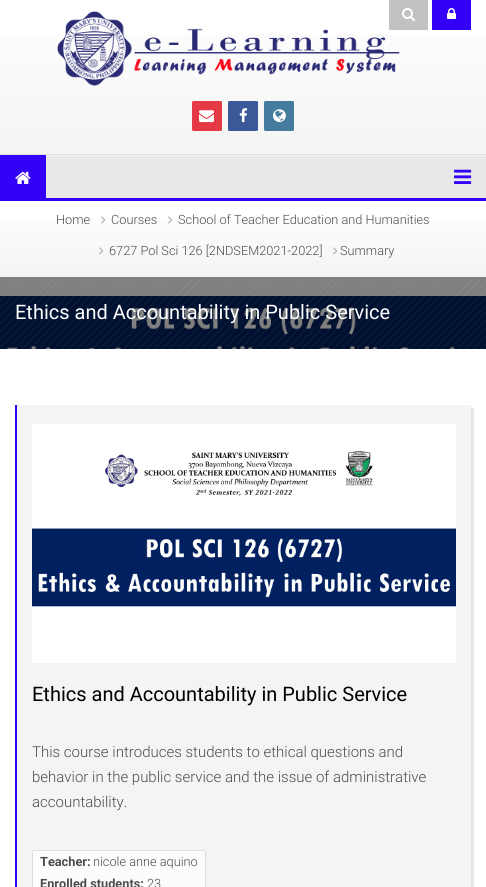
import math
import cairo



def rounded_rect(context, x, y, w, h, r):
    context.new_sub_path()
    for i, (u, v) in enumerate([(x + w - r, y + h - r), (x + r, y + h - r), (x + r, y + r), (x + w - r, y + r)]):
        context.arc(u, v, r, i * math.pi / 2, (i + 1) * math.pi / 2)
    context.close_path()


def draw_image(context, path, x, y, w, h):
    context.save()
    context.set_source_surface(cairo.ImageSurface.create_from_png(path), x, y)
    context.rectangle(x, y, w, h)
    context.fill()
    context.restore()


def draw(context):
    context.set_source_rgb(1, 1, 1)
    context.paint()
    context.set_source_rgb(128 / 255, 128 / 255, 128 / 255)
    context.rectangle(0, 277, 486, 18)
    context.fill()
    gradient = cairo.LinearGradient(243, -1, 243, 154)
    gradient.add_color_stop_rgba(0, 1, 1, 1, 1)
    gradient.add_color_stop_rgba(1, 244 / 255, 244 / 255, 244 / 255, 1)
    context.set_source(gradient)
    context.rectangle(0, 34, 486, 120)
    context.fill()
    draw_image(context, "images/3.png", 57, 11, 343, 75)
    context.set_source_rgb(194 / 255, 194 / 255, 194 / 255)
    context.rectangle(389, 0, 39, 30)
    context.fill()
    draw_image(context, "images/1.png", 402, 8, 13, 13)
    context.set_source_rgb(52 / 255, 1 / 255, 248 / 255)
    context.rectangle(432, 0, 39, 30)
    context.fill()
    draw_image(context, "images/2.png", 447, 8, 9, 11)
    context.set_source_rgb(224 / 255, 224 / 255, 224 / 255)
    context.rectangle(0, 154, 486, 1)
    context.fill()
    context.set_source_rgb(230 / 255, 57 / 255, 70 / 255)
    rounded_rect(context, 192, 101, 30, 30, 1.5)
    context.fill()
    draw_image(context, "images/4.png", 199, 110, 15, 13)
    context.set_source_rgb(59 / 255, 89 / 255, 152 / 255)
    rounded_rect(context, 228, 101, 30, 30, 1.5)
    context.fill()
    draw_image(context, "images/5.png", 239, 108, 9, 15)
    context.set_source_rgb(69 / 255, 123 / 255, 157 / 255)
    rounded_rect(context, 264, 101, 30, 30, 1.5)
    context.fill()
    draw_image(context, "images/6.png", 273, 109, 13, 14)
    context.set_source_rgb(232 / 255, 232 / 255, 232 / 255)
    context.rectangle(46, 156, 440, 42)
    context.fill()
    context.set_source_rgb(52 / 255, 1 / 255, 248 / 255)
    context.rectangle(0, 155, 46, 43)
    context.fill()
    draw_image(context, "images/7.png", 15, 171, 16, 13)
    draw_image(context, "images/8.png", 454, 169, 18, 15)
    context.rectangle(0, 198, 486, 3)
    context.fill()
    context.set_source_rgb(244 / 255, 244 / 255, 244 / 255)
    context.rectangle(46, 155, 440, 1)
    context.fill()
    gradient = cairo.LinearGradient(243, 201, 243, 277)
    gradient.add_color_stop_rgba(0, 1, 1, 1, 1)
    gradient.add_color_stop_rgba(1, 244 / 255, 244 / 255, 244 / 255, 1)
    context.set_source(gradient)
    context.rectangle(0, 218, 486, 59)
    context.fill()
    draw_image(context, "images/9.png", 101, 216, 5, 8)
    draw_image(context, "images/9.png", 168, 216, 5, 8)
    draw_image(context, "images/10.png", 99, 247, 5, 8)
    draw_image(context, "images/10.png", 333, 247, 5, 8)
    draw_image(context, "images/11.png", 0, 295, 486, 54)
    draw_image(context, "images/12.png", 0, 277, 486, 72)
    context.set_source_rgb(230 / 255, 230 / 255, 230 / 255)
    context.new_path()
    context.move_to(18, 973)
    context.line_to(18, 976)
    context.line_to(474, 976)
    context.line_to(474, 408)
    context.line_to(471, 408)
    context.line_to(471, 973)
    context.close_path()
    context.fill()
    context.set_source_rgb(244 / 255, 244 / 255, 244 / 255)
    context.rectangle(17, 405, 454, 482)
    context.fill()
    context.set_source_rgb(52 / 255, 1 / 255, 248 / 255)
    context.rectangle(15, 405, 2, 482)
    context.fill()
    draw_image(context, "images/13.png", 32, 424, 424, 239)
    context.set_source_rgb(252 / 255, 252 / 255, 252 / 255)
    rounded_rect(context, 32.5, 850.5, 173, 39, 1.5)
    context.fill_preserve()
    context.set_source_rgb(221 / 255, 221 / 255, 221 / 255)
    context.set_line_width(1)
    context.stroke()
    context.select_font_face("Roboto Light")
    context.set_font_size(12.75)
    context.set_source_rgb(76 / 255, 76 / 255, 76 / 255)
    context.move_to(56, 224)
    context.show_text("Home")
    context.move_to(111, 224)
    context.show_text("Courses")
    context.move_to(178, 224)
    context.show_text("School of Teacher Education and Humanities")
    context.move_to(109, 255)
    context.show_text("6727 Pol Sci 126 [2NDSEM2021-2022]")
    context.move_to(340, 255)
    context.show_text("Summary")
    context.select_font_face("Roboto")
    context.set_font_size(20)
    context.set_source_rgb(1, 1, 1)
    context.move_to(15, 319)
    context.show_text("Ethics and Accountability in Public Service")
    context.set_source_rgb(0, 0, 0)
    context.move_to(32, 701)
    context.show_text("Ethics and Accountability in Public Service")
    context.select_font_face("Roboto Light")
    context.set_font_size(15)
    context.set_source_rgb(76 / 255, 76 / 255, 76 / 255)
    context.move_to(32, 757)
    context.show_text("This course introduces students to ethical questions and")
    context.move_to(32, 782)
    context.show_text("behavior in the public service and the issue of administrative")
    context.move_to(32, 807)
    context.show_text("accountability.")
    context.select_font_face("Roboto", cairo.FontSlant.NORMAL, cairo.FontWeight.BOLD)
    context.set_font_size(12.75)
    context.move_to(40, 866)
    context.show_text("Teacher:")
    context.select_font_face("Roboto Light")
    context.move_to(93, 866)
    context.show_text("nicole anne aquino")
    context.select_font_face("Roboto", cairo.FontSlant.NORMAL, cairo.FontWeight.BOLD)
    context.move_to(40, 888)
    context.show_text("Enrolled students:")
    context.select_font_face("Roboto Light")
    context.move_to(147, 888)
    context.show_text("23")


surface = cairo.ImageSurface(cairo.Format.RGB24, 486, 887)
context = cairo.Context(surface)
options = cairo.FontOptions()
options.set_hint_metrics(cairo.HintMetrics.OFF)
options.set_hint_style(cairo.HintStyle.NONE)
context.set_font_options(options)
context.set_miter_limit(4)
draw(context)
surface.write_to_png("out.png")
